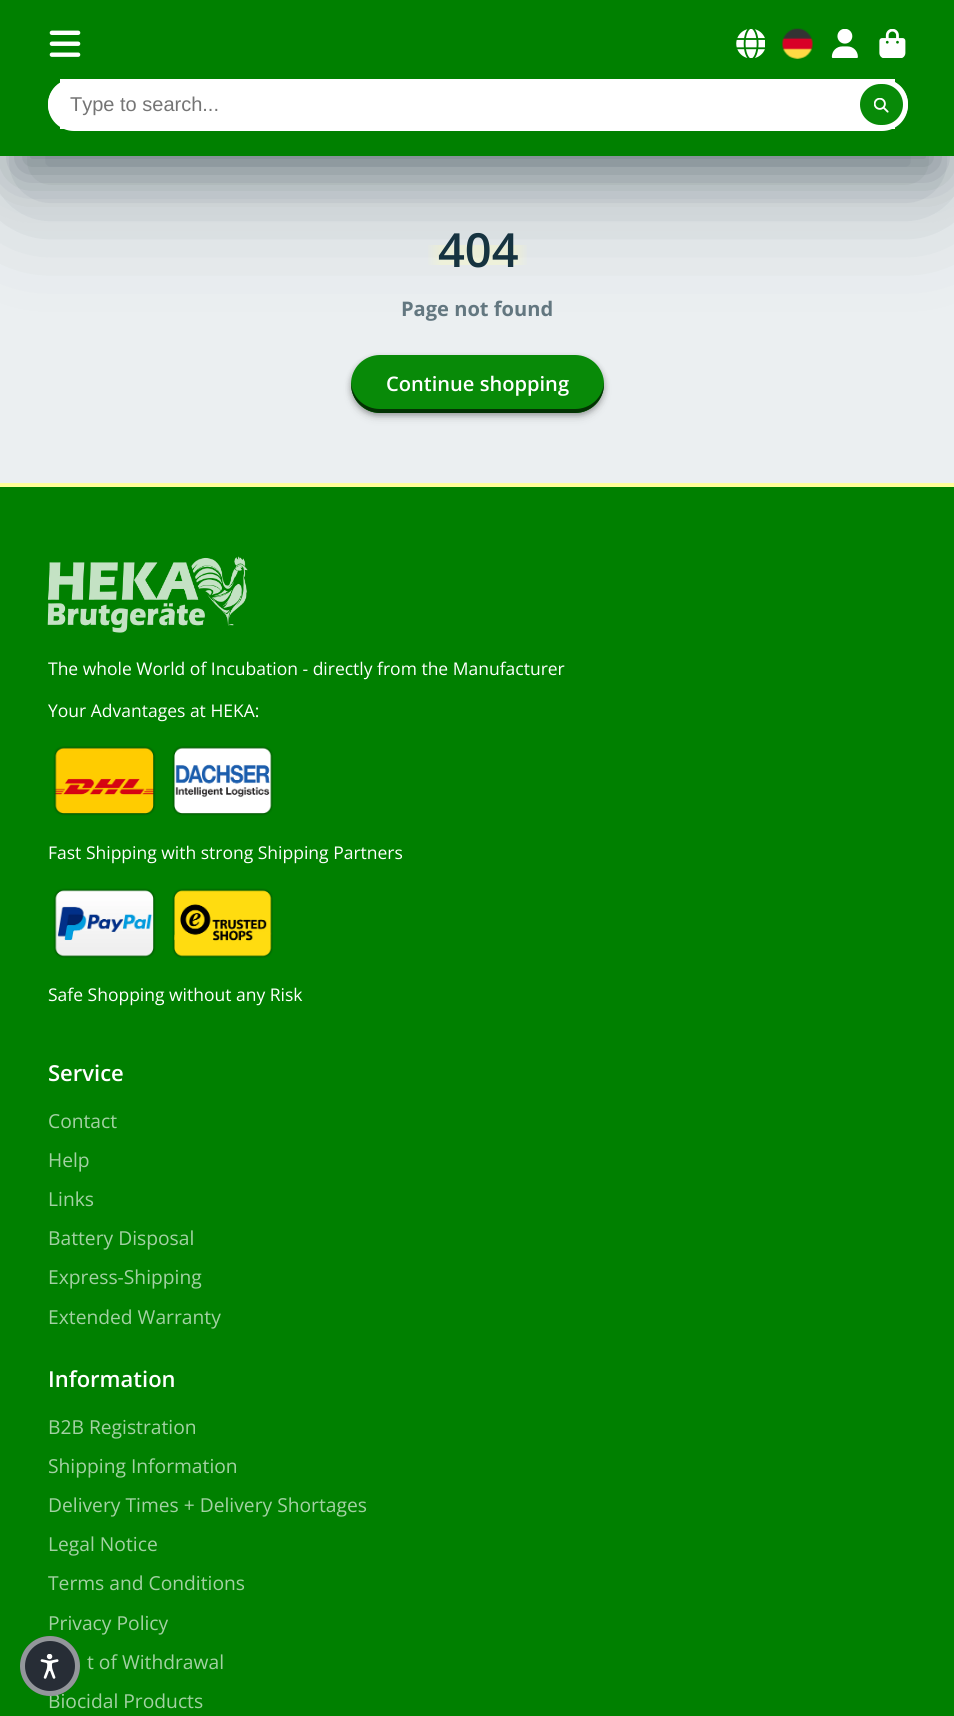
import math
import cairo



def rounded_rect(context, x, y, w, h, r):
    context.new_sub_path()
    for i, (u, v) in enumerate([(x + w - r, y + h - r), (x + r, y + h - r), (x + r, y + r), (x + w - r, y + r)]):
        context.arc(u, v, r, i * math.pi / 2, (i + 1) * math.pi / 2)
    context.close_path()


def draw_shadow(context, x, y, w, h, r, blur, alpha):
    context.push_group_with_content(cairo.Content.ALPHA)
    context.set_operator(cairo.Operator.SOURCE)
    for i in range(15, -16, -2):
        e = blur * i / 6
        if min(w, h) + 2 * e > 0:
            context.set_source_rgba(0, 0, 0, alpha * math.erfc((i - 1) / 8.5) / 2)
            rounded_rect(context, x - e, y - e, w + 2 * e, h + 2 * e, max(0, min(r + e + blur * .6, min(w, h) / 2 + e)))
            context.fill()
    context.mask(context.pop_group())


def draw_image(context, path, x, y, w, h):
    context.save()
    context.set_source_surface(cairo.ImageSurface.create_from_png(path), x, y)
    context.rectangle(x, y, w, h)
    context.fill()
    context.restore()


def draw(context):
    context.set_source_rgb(235 / 255, 239 / 255, 241 / 255)
    context.paint()
    context.set_source_rgb(15 / 255, 36 / 255, 45 / 255)
    draw_shadow(context, 18, 50, 920, 121, 0, 24, 0.4)
    gradient = cairo.LinearGradient(426, 255, 529, 255)
    gradient.add_color_stop_rgba(0, 235 / 255, 239 / 255, 241 / 255, 1)
    gradient.add_color_stop_rgba(0.15, 245 / 255, 247 / 255, 223 / 255, 1)
    gradient.add_color_stop_rgba(0.85, 245 / 255, 247 / 255, 223 / 255, 1)
    gradient.add_color_stop_rgba(1, 235 / 255, 239 / 255, 241 / 255, 1)
    context.set_source(gradient)
    context.rectangle(428, 245, 99, 20)
    context.fill()
    context.set_source_rgb(0, 0, 0)
    draw_shadow(context, 354, 364, 247, 51, 25.5, 6, 0.15)
    draw_shadow(context, 351, 358, 253, 57, 28.5, 3, 0.3)
    context.set_source_rgb(8 / 255, 138 / 255, 8 / 255)
    rounded_rect(context, 351, 355, 253, 58, 29)
    context.fill()
    context.set_source_rgb(15 / 255, 36 / 255, 45 / 255)
    draw_shadow(context, 18, 73, 920, 121, 0, 54.5, 0.3)
    context.set_source_rgb(0, 128 / 255, 0)
    context.rectangle(0, 0, 954, 156)
    context.fill()
    draw_image(context, "images/1.png", 49, 30, 32, 27)
    draw_image(context, "images/2.png", 736, 29, 29, 29)
    draw_image(context, "images/3.png", 782, 28, 31, 31)
    draw_image(context, "images/4.png", 831, 29, 27, 29)
    draw_image(context, "images/5.png", 879, 29, 27, 29)
    context.set_source_rgb(1, 1, 1)
    rounded_rect(context, 48, 79, 860, 50, 25)
    context.fill()
    context.rectangle(60, 79, 835, 50)
    context.fill()
    rounded_rect(context, 48, 79, 860, 52, 26)
    context.fill()
    context.set_source_rgb(8 / 255, 138 / 255, 8 / 255)
    rounded_rect(context, 860, 84, 43, 41, 20.5)
    context.fill()
    draw_image(context, "images/6.png", 874, 98, 15, 15)
    context.set_source_rgb(3 / 255, 51 / 255, 3 / 255)
    context.new_path()
    context.move_to(351, 382)
    context.line_to(351, 384)
    context.curve_to(351, 400, 364, 413, 380, 413)
    context.line_to(575, 413)
    context.curve_to(591, 413, 604, 400, 604, 384)
    context.line_to(604, 382)
    context.curve_to(603, 398, 590, 409, 575, 409)
    context.line_to(380, 409)
    context.curve_to(365, 409, 352, 398, 351, 382)
    context.close_path()
    context.fill()
    context.set_source_rgb(0, 128 / 255, 0)
    context.rectangle(0, 487, 954, 1229)
    context.fill()
    context.set_source_rgb(1, 1, 153 / 255)
    context.rectangle(0, 483, 954, 4)
    context.fill()
    draw_image(context, "images/7.png", 47, 556, 201, 77)
    draw_image(context, "images/8.png", 53, 746, 103, 70)
    draw_image(context, "images/9.png", 172, 746, 101, 70)
    draw_image(context, "images/10.png", 53, 888, 103, 70)
    draw_image(context, "images/11.png", 172, 888, 101, 70)
    context.select_font_face("Liberation Sans")
    context.set_font_size(20)
    context.set_source_rgb(117 / 255, 117 / 255, 117 / 255)
    context.move_to(70, 111)
    context.show_text("Type to search...")
    context.select_font_face("Open Sans SemiBold")
    context.set_font_size(47)
    context.set_source_rgb(22 / 255, 51 / 255, 64 / 255)
    context.move_to(438, 267)
    context.show_text("404")
    context.select_font_face("Open Sans", cairo.FontSlant.NORMAL, cairo.FontWeight.BOLD)
    context.set_font_size(20.1)
    context.set_source_rgb(99 / 255, 119 / 255, 128 / 255)
    context.move_to(401, 316)
    context.show_text("Page not found")
    context.select_font_face("Open Sans SemiBold")
    context.set_source_rgb(1, 1, 1)
    context.move_to(386, 391)
    context.show_text("Continue shopping")
    context.select_font_face("Open Sans")
    context.set_font_size(17.5)
    context.move_to(48, 675)
    context.show_text("The whole World of Incubation - directly from the Manufacturer")
    context.move_to(48, 717)
    context.show_text("Your Advantages at HEKA:")
    context.move_to(48, 859)
    context.show_text("Fast Shipping with strong Shipping Partners")
    context.move_to(48, 1001)
    context.show_text("Safe Shopping without any Risk")
    context.select_font_face("Open Sans SemiBold")
    context.set_font_size(22)
    context.move_to(48, 1081)
    context.show_text("Service")
    context.select_font_face("Open Sans")
    context.set_font_size(19.25)
    context.set_source_rgb(163 / 255, 209 / 255, 163 / 255)
    context.move_to(48, 1128)
    context.show_text("Contact")
    context.move_to(48, 1167)
    context.show_text("Help")
    context.move_to(48, 1206)
    context.show_text("Links")
    context.move_to(48, 1245)
    context.show_text("Battery Disposal")
    context.move_to(48, 1284)
    context.show_text("Express-Shipping")
    context.move_to(48, 1324)
    context.show_text("Extended Warranty")
    context.select_font_face("Open Sans SemiBold")
    context.set_font_size(22)
    context.set_source_rgb(1, 1, 1)
    context.move_to(48, 1387)
    context.show_text("Information")
    context.select_font_face("Open Sans")
    context.set_font_size(19.25)
    context.set_source_rgb(163 / 255, 209 / 255, 163 / 255)
    context.move_to(48, 1434)
    context.show_text("B2B Registration")
    context.move_to(48, 1473)
    context.show_text("Shipping Information")
    context.move_to(48, 1512)
    context.show_text("Delivery Times + Delivery Shortages")
    context.move_to(48, 1551)
    context.show_text("Legal Notice")
    context.move_to(48, 1590)
    context.show_text("Terms and Conditions")
    context.move_to(48, 1630)
    context.show_text("Privacy Policy")
    context.move_to(87, 1669)
    context.show_text("t of Withdrawal")
    context.move_to(48, 1708)
    context.show_text("Biocidal Products")
    context.set_source_rgb(39 / 255, 45 / 255, 54 / 255)
    context.new_path()
    context.arc(50, 1666, 30, 0, 2 * math.pi)
    context.fill()
    context.arc(50, 1666, 27.5, 0, 2 * math.pi)
    context.set_source_rgba(1, 1, 1, 0.5)
    context.set_line_width(5)
    context.stroke()
    draw_image(context, "images/12.png", 40, 1654, 19, 25)


surface = cairo.ImageSurface(cairo.Format.RGB24, 954, 1716)
context = cairo.Context(surface)
options = cairo.FontOptions()
options.set_hint_metrics(cairo.HintMetrics.OFF)
options.set_hint_style(cairo.HintStyle.NONE)
context.set_font_options(options)
context.set_miter_limit(4)
draw(context)
surface.write_to_png("out.png")
